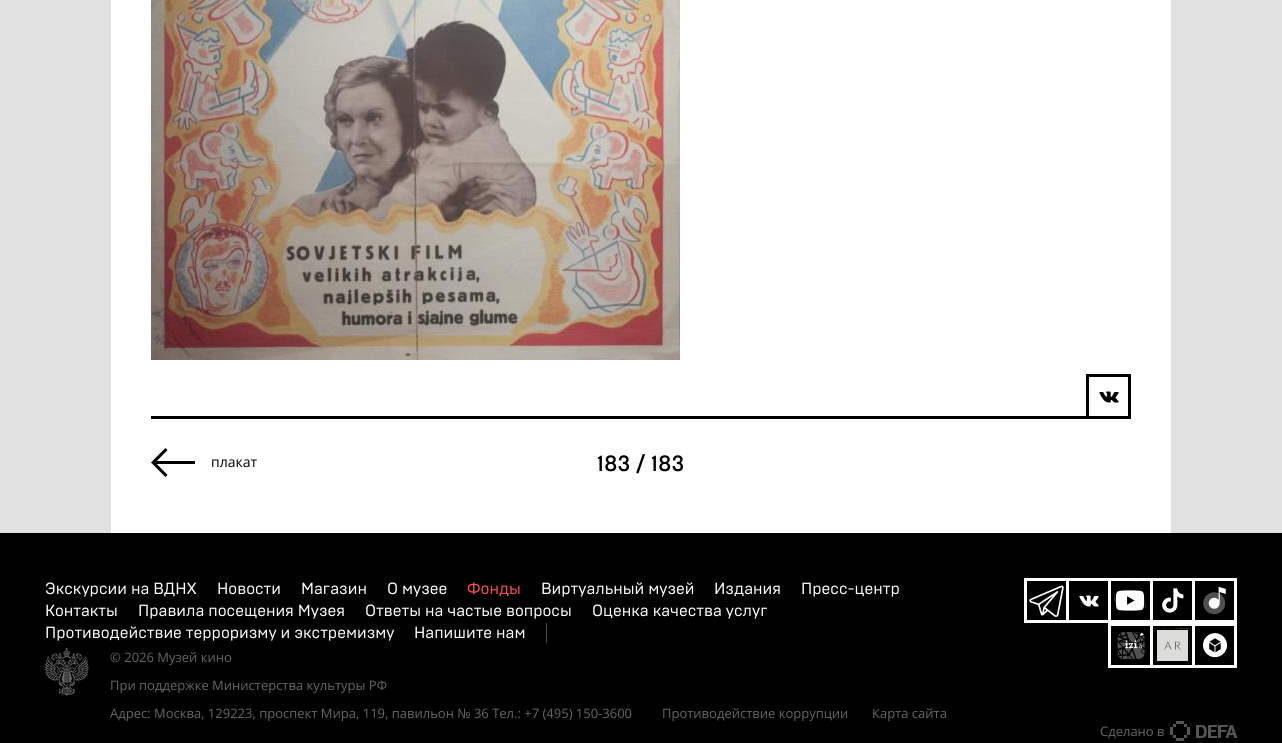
import math
import cairo



def draw_image(context, path, x, y, w, h):
    context.save()
    context.set_source_surface(cairo.ImageSurface.create_from_png(path), x, y)
    context.rectangle(x, y, w, h)
    context.fill()
    context.restore()


def draw(context):
    context.set_source_rgb(225 / 255, 225 / 255, 225 / 255)
    context.paint()
    context.set_source_rgb(1, 1, 1)
    context.rectangle(111, 0, 1060, 533)
    context.fill()
    draw_image(context, "images/1.png", 151, 0, 529, 360)
    context.set_source_rgb(0, 0, 0)
    context.rectangle(151, 416, 935, 3)
    context.fill()
    draw_image(context, "images/2.png", 1099, 391, 20, 12)
    context.rectangle(1087.5, 375.5, 42, 42)
    context.set_line_width(3)
    context.stroke()
    draw_image(context, "images/3.png", 151, 448, 44, 29)
    context.rectangle(0, 533, 1282, 210)
    context.fill()
    context.set_source_rgb(75 / 255, 75 / 255, 75 / 255)
    context.rectangle(546, 623, 1, 20)
    context.fill()
    draw_image(context, "images/4.png", 45, 648, 44, 48)
    draw_image(context, "images/5.png", 1029, 585, 35, 32)
    context.rectangle(1025.5, 579.5, 42, 42)
    context.set_source_rgb(1, 1, 1)
    context.stroke()
    draw_image(context, "images/6.png", 1079, 595, 20, 12)
    context.rectangle(1067.5, 579.5, 42, 42)
    context.stroke()
    draw_image(context, "images/7.png", 1114, 581, 32, 30)
    context.rectangle(1109.5, 579.5, 42, 42)
    context.stroke()
    draw_image(context, "images/8.png", 1162, 588, 22, 25)
    context.rectangle(1151.5, 579.5, 42, 42)
    context.stroke()
    draw_image(context, "images/9.png", 1203, 586, 23, 29)
    context.rectangle(1193.5, 579.5, 42, 42)
    context.stroke()
    draw_image(context, "images/10.png", 1117, 632, 28, 27)
    context.rectangle(1109.5, 624.5, 42, 42)
    context.stroke()
    draw_image(context, "images/11.png", 1155, 628, 35, 35)
    context.rectangle(1151.5, 624.5, 42, 42)
    context.stroke()
    draw_image(context, "images/12.png", 1203, 633, 24, 25)
    context.rectangle(1193.5, 624.5, 42, 42)
    context.stroke()
    draw_image(context, "images/13.png", 1170, 721, 67, 20)
    context.select_font_face("Open Sans")
    context.set_font_size(14)
    context.set_source_rgb(0, 0, 0)
    context.move_to(211, 467)
    context.show_text("плакат")
    context.select_font_face("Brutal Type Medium")
    context.set_font_size(22)
    context.move_to(597, 471)
    context.show_text("183 / 183")
    context.select_font_face("Brutal Type")
    context.set_font_size(16)
    context.set_source_rgb(1, 1, 1)
    context.move_to(45, 594)
    context.show_text("Экскурсии на ВДНХ")
    context.move_to(217, 594)
    context.show_text("Новости")
    context.move_to(301, 594)
    context.show_text("Магазин")
    context.move_to(387, 594)
    context.show_text("О музее")
    context.set_source_rgb(253 / 255, 79 / 255, 87 / 255)
    context.move_to(467, 594)
    context.show_text("Фонды")
    context.set_source_rgb(1, 1, 1)
    context.move_to(541, 594)
    context.show_text("Виртуальный музей")
    context.move_to(714, 594)
    context.show_text("Издания")
    context.move_to(801, 594)
    context.show_text("Пресс-центр")
    context.move_to(45, 616)
    context.show_text("Контакты")
    context.move_to(138, 616)
    context.show_text("Правила посещения Музея")
    context.move_to(365, 616)
    context.show_text("Ответы на частые вопросы")
    context.move_to(592, 616)
    context.show_text("Оценка качества услуг")
    context.move_to(45, 638)
    context.show_text("Противодействие терроризму и экстремизму")
    context.move_to(414, 638)
    context.show_text("Напишите нам")
    context.select_font_face("Open Sans")
    context.set_font_size(13)
    context.set_source_rgb(102 / 255, 102 / 255, 102 / 255)
    context.move_to(110, 662)
    context.show_text("© 2026 Музей кино")
    context.move_to(110, 690)
    context.show_text("При поддержке Министерства культуры РФ")
    context.move_to(110, 718)
    context.show_text("Адрес: Москва, 129223, проспект Мира, 119, павильон № 36 Тел.: +7 (495) 150-3600")
    context.move_to(662, 718)
    context.show_text("Противодействие коррупции")
    context.move_to(872, 718)
    context.show_text("Карта сайта")
    context.move_to(1100, 736)
    context.show_text("Сделано в")


surface = cairo.ImageSurface(cairo.Format.RGB24, 1282, 743)
context = cairo.Context(surface)
options = cairo.FontOptions()
options.set_hint_metrics(cairo.HintMetrics.OFF)
options.set_hint_style(cairo.HintStyle.NONE)
context.set_font_options(options)
context.set_miter_limit(4)
draw(context)
surface.write_to_png("out.png")
